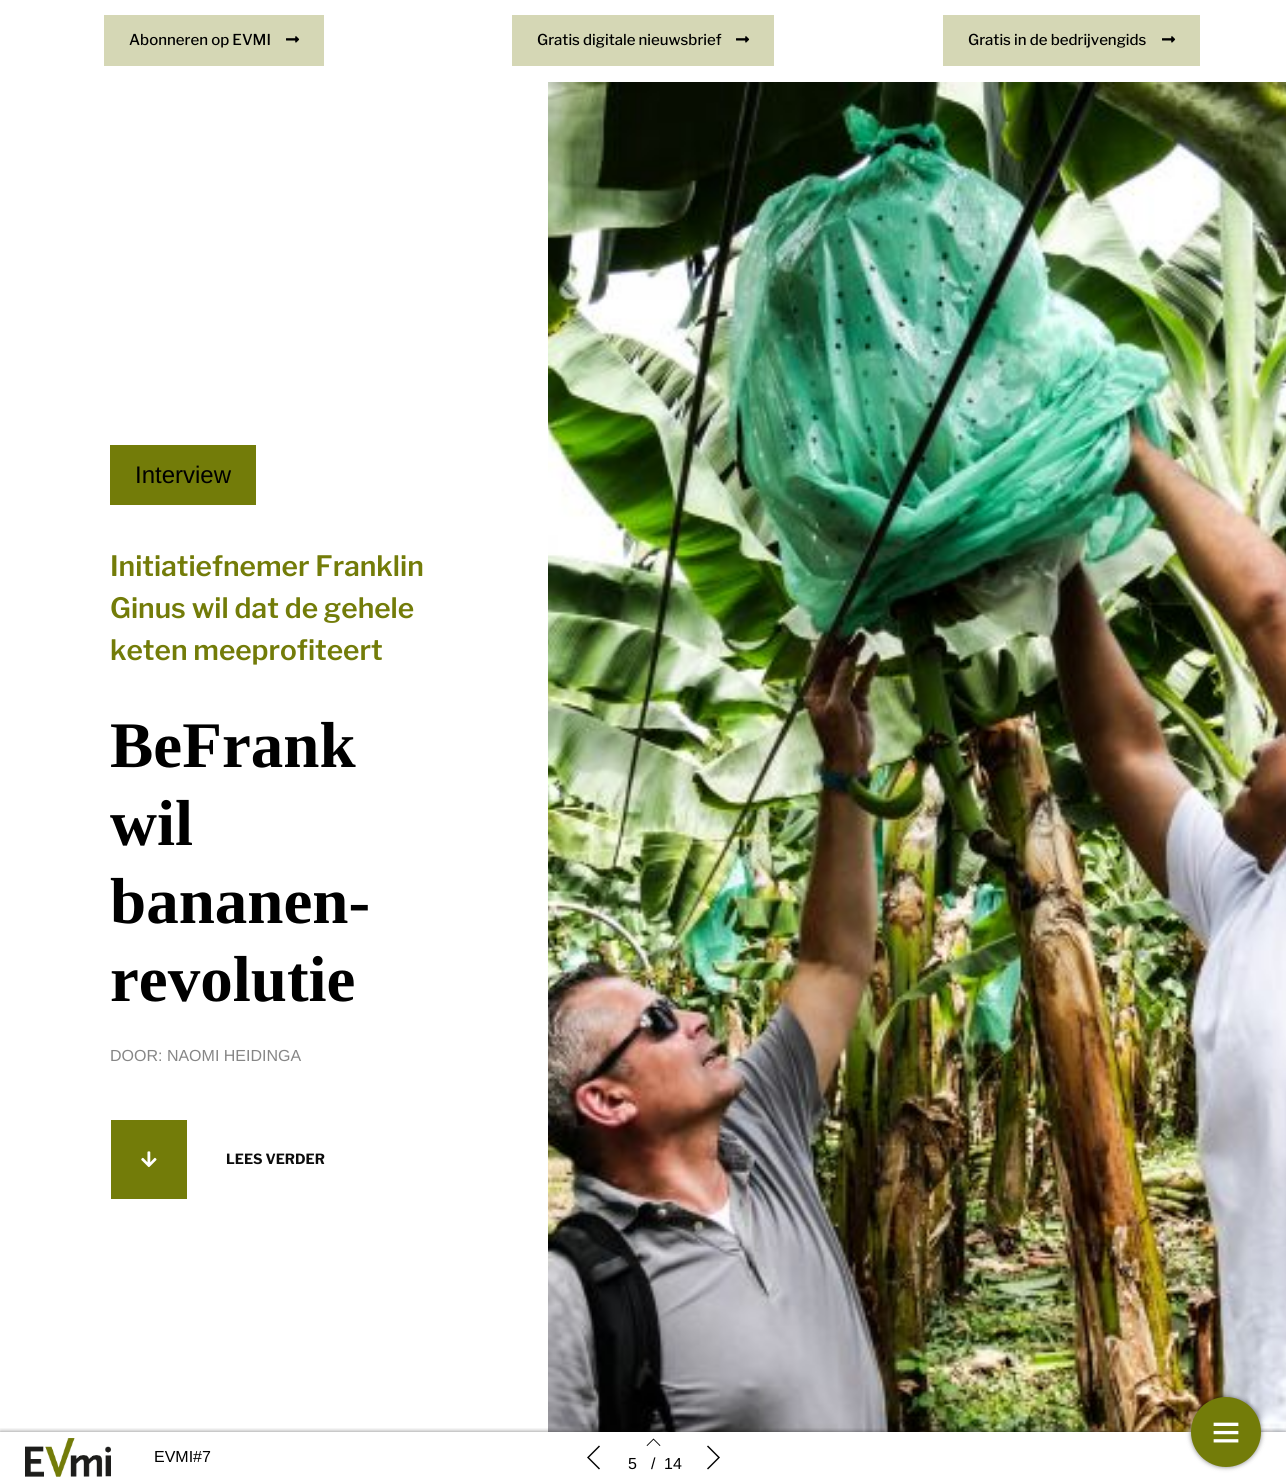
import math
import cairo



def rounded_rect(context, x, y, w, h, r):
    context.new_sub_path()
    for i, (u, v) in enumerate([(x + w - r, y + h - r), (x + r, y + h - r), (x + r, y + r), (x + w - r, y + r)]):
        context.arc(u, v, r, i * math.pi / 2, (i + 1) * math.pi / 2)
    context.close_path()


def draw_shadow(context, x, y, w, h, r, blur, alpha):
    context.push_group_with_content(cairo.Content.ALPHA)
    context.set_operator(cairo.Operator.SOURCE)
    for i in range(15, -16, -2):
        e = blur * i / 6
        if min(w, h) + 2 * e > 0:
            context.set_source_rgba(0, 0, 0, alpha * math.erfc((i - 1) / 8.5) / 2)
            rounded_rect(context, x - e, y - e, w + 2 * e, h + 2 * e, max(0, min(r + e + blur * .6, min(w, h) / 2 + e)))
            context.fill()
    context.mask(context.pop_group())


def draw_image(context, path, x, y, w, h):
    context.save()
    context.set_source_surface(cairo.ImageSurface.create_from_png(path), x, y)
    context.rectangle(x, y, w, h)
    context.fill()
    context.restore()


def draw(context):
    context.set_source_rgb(1, 1, 1)
    context.paint()
    context.set_source_rgb(213 / 255, 215 / 255, 181 / 255)
    context.rectangle(104, 15, 220, 51)
    context.fill()
    draw_image(context, "images/1.png", 286, 36, 14, 7)
    context.rectangle(512, 15, 262, 51)
    context.fill()
    draw_image(context, "images/1.png", 736, 36, 14, 7)
    context.rectangle(943, 15, 257, 51)
    context.fill()
    draw_image(context, "images/1.png", 1162, 36, 14, 7)
    context.set_source_rgb(115 / 255, 124 / 255, 9 / 255)
    context.rectangle(110, 445, 146, 60)
    context.fill()
    context.rectangle(111, 1120, 76, 79)
    context.fill()
    draw_image(context, "images/2.png", 141, 1151, 16, 17)
    draw_image(context, "images/3.png", 548, 82, 738, 1350)
    context.save()
    context.rectangle(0, 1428, 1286, 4)
    context.clip()
    context.set_source_rgb(0, 0, 0)
    draw_shadow(context, 0, 1432, 1286, 50, 0, 2.5, 0.5)
    context.restore()
    draw_image(context, "images/4.png", 25, 1438, 86, 39)
    context.set_source_rgb(0, 0, 0)
    context.new_path()
    context.move_to(589, 1457.5)
    context.line_to(600, 1468.5)
    context.line_to(599, 1469.5)
    context.line_to(587, 1457.5)
    context.line_to(599, 1445.5)
    context.line_to(600, 1446.5)
    context.close_path()
    context.fill()
    draw_image(context, "images/5.png", 646, 1438, 15, 8)
    context.new_path()
    context.move_to(720, 1457.5)
    context.line_to(708, 1469.5)
    context.line_to(707, 1468.5)
    context.line_to(718, 1457.5)
    context.line_to(707, 1446.5)
    context.line_to(708, 1445.5)
    context.close_path()
    context.fill()
    context.set_source_rgb(0, 0, 0)
    draw_shadow(context, 1191, 1397, 70, 70, 35, 2.5, 0.5)
    context.set_source_rgb(115 / 255, 124 / 255, 9 / 255)
    context.arc(1226, 1432, 35, 0, 2 * math.pi)
    context.fill()
    draw_image(context, "images/6.png", 1213, 1422, 26, 21)
    context.select_font_face("Libre Franklin Medium")
    context.set_font_size(15)
    context.set_source_rgb(0, 0, 0)
    context.move_to(129, 45)
    context.show_text("Abonneren op EVMI")
    context.move_to(537, 45)
    context.show_text("Gratis digitale nieuwsbrief")
    context.move_to(968, 45)
    context.show_text("Gratis in de bedrijvengids")
    context.select_font_face("Liberation Sans")
    context.set_font_size(24)
    context.move_to(135, 483)
    context.show_text("Interview")
    context.select_font_face("Libre Franklin SemiBold")
    context.set_font_size(28)
    context.set_source_rgb(115 / 255, 124 / 255, 9 / 255)
    context.move_to(110, 576)
    context.show_text("Initiatiefnemer Franklin")
    context.move_to(110, 618)
    context.show_text("Ginus wil dat de gehele")
    context.move_to(110, 660)
    context.show_text("keten meeprofiteert")
    context.select_font_face("Tinos", cairo.FontSlant.NORMAL, cairo.FontWeight.BOLD)
    context.set_font_size(65)
    context.set_source_rgb(0, 0, 0)
    context.move_to(110, 767)
    context.show_text("BeFrank")
    context.move_to(110, 845)
    context.show_text("wil")
    context.move_to(110, 923)
    context.show_text("bananen-")
    context.move_to(110, 1001)
    context.show_text("revolutie")
    context.select_font_face("Liberation Sans")
    context.set_font_size(16)
    context.set_source_rgb(134 / 255, 134 / 255, 134 / 255)
    context.move_to(110, 1061)
    context.show_text("DOOR: NAOMI HEIDINGA")
    context.select_font_face("Libre Franklin", cairo.FontSlant.NORMAL, cairo.FontWeight.BOLD)
    context.set_font_size(14)
    context.set_source_rgb(12 / 255, 12 / 255, 12 / 255)
    context.move_to(226, 1164)
    context.show_text("LEES VERDER")
    context.select_font_face("Liberation Sans")
    context.set_font_size(16)
    context.set_source_rgb(0, 0, 0)
    context.move_to(154, 1462)
    context.show_text("EVMI#7")
    context.move_to(628, 1469)
    context.show_text("5")
    context.move_to(651, 1469)
    context.show_text("/")
    context.move_to(664, 1469)
    context.show_text("14")


surface = cairo.ImageSurface(cairo.Format.RGB24, 1286, 1482)
context = cairo.Context(surface)
options = cairo.FontOptions()
options.set_hint_metrics(cairo.HintMetrics.OFF)
options.set_hint_style(cairo.HintStyle.NONE)
context.set_font_options(options)
context.set_miter_limit(4)
draw(context)
surface.write_to_png("out.png")
